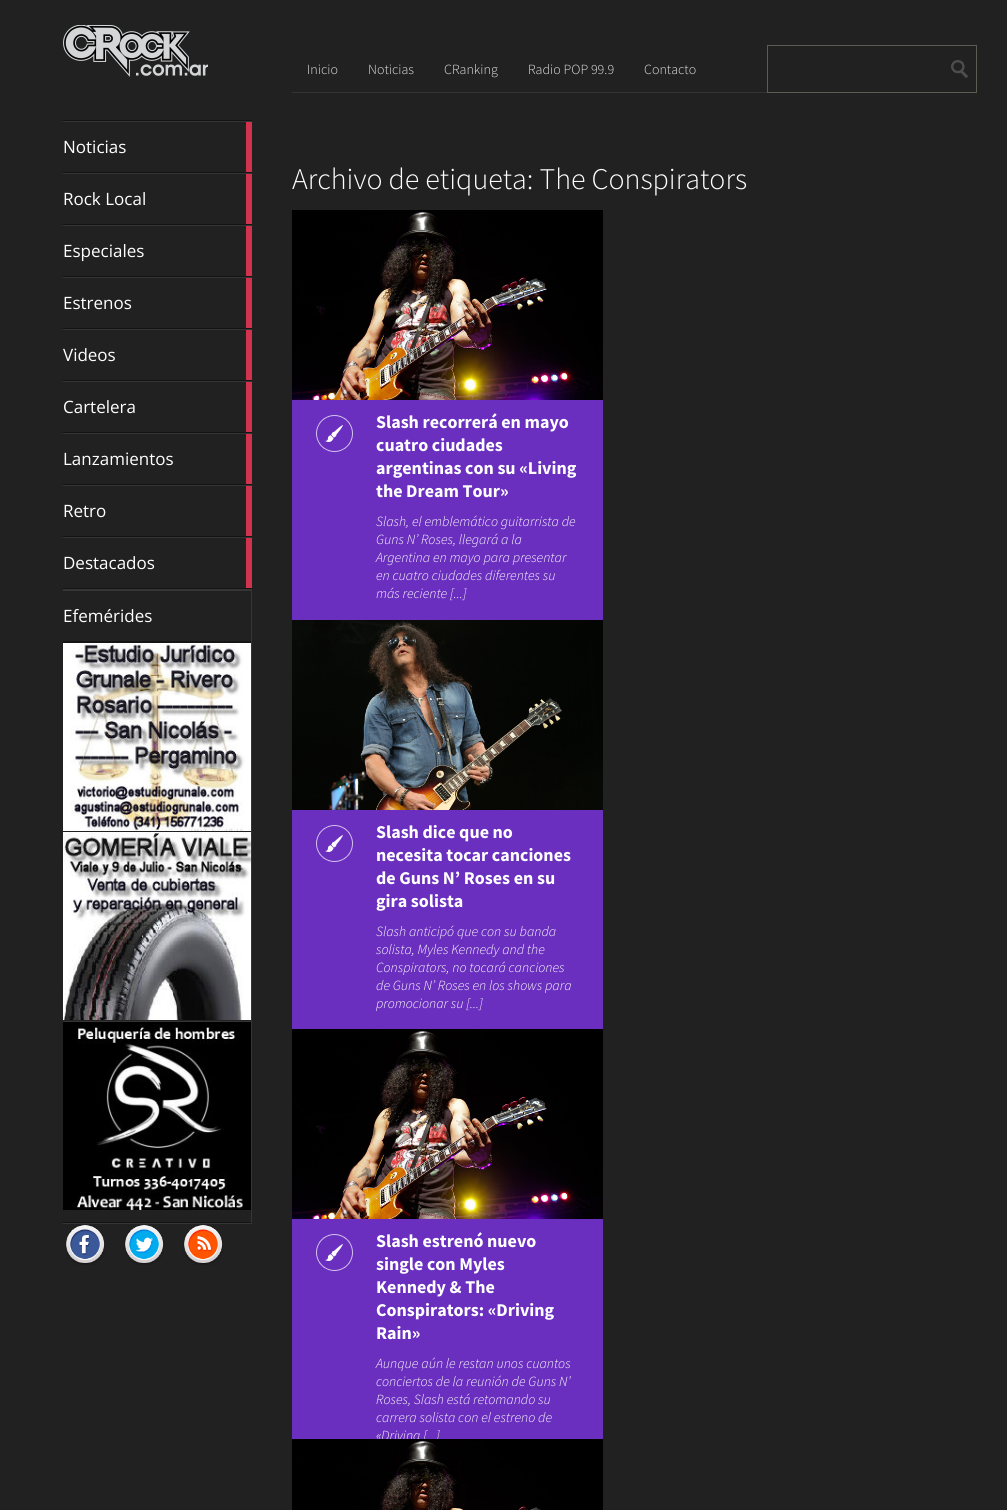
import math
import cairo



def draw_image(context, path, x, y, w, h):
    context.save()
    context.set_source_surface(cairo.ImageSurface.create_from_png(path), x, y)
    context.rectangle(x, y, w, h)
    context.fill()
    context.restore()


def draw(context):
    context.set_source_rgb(33 / 255, 33 / 255, 33 / 255)
    context.paint()
    draw_image(context, "images/1.png", 63, 25, 145, 52)
    context.set_source_rgb(20 / 255, 20 / 255, 20 / 255)
    context.rectangle(63, 120, 189, 1)
    context.fill()
    context.set_source_rgb(53 / 255, 53 / 255, 53 / 255)
    context.rectangle(63, 1223, 189, 1)
    context.fill()
    context.rectangle(63, 121, 189, 1)
    context.fill()
    context.set_source_rgb(20 / 255, 20 / 255, 20 / 255)
    context.rectangle(63, 172, 189, 1)
    context.fill()
    context.set_source_rgb(209 / 255, 51 / 255, 78 / 255)
    context.rectangle(246, 122, 6, 50)
    context.fill()
    context.set_source_rgb(53 / 255, 53 / 255, 53 / 255)
    context.rectangle(63, 173, 189, 1)
    context.fill()
    context.set_source_rgb(20 / 255, 20 / 255, 20 / 255)
    context.rectangle(63, 224, 189, 1)
    context.fill()
    context.set_source_rgb(209 / 255, 51 / 255, 78 / 255)
    context.rectangle(246, 174, 6, 50)
    context.fill()
    context.set_source_rgb(53 / 255, 53 / 255, 53 / 255)
    context.rectangle(63, 225, 189, 1)
    context.fill()
    context.set_source_rgb(20 / 255, 20 / 255, 20 / 255)
    context.rectangle(63, 276, 189, 1)
    context.fill()
    context.set_source_rgb(209 / 255, 51 / 255, 78 / 255)
    context.rectangle(246, 226, 6, 50)
    context.fill()
    context.set_source_rgb(53 / 255, 53 / 255, 53 / 255)
    context.rectangle(63, 277, 189, 1)
    context.fill()
    context.set_source_rgb(20 / 255, 20 / 255, 20 / 255)
    context.rectangle(63, 328, 189, 1)
    context.fill()
    context.set_source_rgb(209 / 255, 51 / 255, 78 / 255)
    context.rectangle(246, 278, 6, 50)
    context.fill()
    context.set_source_rgb(53 / 255, 53 / 255, 53 / 255)
    context.rectangle(63, 329, 189, 1)
    context.fill()
    context.set_source_rgb(20 / 255, 20 / 255, 20 / 255)
    context.rectangle(63, 380, 189, 1)
    context.fill()
    context.set_source_rgb(209 / 255, 51 / 255, 78 / 255)
    context.rectangle(246, 330, 6, 50)
    context.fill()
    context.set_source_rgb(53 / 255, 53 / 255, 53 / 255)
    context.rectangle(63, 381, 189, 1)
    context.fill()
    context.set_source_rgb(20 / 255, 20 / 255, 20 / 255)
    context.rectangle(63, 432, 189, 1)
    context.fill()
    context.set_source_rgb(209 / 255, 51 / 255, 78 / 255)
    context.rectangle(246, 382, 6, 50)
    context.fill()
    context.set_source_rgb(53 / 255, 53 / 255, 53 / 255)
    context.rectangle(63, 433, 189, 1)
    context.fill()
    context.set_source_rgb(20 / 255, 20 / 255, 20 / 255)
    context.rectangle(63, 484, 189, 1)
    context.fill()
    context.set_source_rgb(209 / 255, 51 / 255, 78 / 255)
    context.rectangle(246, 434, 6, 50)
    context.fill()
    context.set_source_rgb(53 / 255, 53 / 255, 53 / 255)
    context.rectangle(63, 485, 189, 1)
    context.fill()
    context.set_source_rgb(20 / 255, 20 / 255, 20 / 255)
    context.rectangle(63, 536, 189, 1)
    context.fill()
    context.set_source_rgb(209 / 255, 51 / 255, 78 / 255)
    context.rectangle(246, 486, 6, 50)
    context.fill()
    context.set_source_rgb(53 / 255, 53 / 255, 53 / 255)
    context.rectangle(63, 537, 189, 1)
    context.fill()
    context.set_source_rgb(20 / 255, 20 / 255, 20 / 255)
    context.rectangle(63, 588, 189, 1)
    context.fill()
    context.set_source_rgb(209 / 255, 51 / 255, 78 / 255)
    context.rectangle(246, 538, 6, 50)
    context.fill()
    context.set_source_rgb(53 / 255, 53 / 255, 53 / 255)
    context.rectangle(251, 589, 1, 634)
    context.fill()
    context.rectangle(63, 589, 188, 2)
    context.fill()
    context.set_source_rgb(20 / 255, 20 / 255, 20 / 255)
    context.rectangle(63, 641, 188, 2)
    context.fill()
    draw_image(context, "images/2.png", 63, 643, 188, 188)
    draw_image(context, "images/3.png", 63, 832, 188, 188)
    context.set_source_rgb(53 / 255, 53 / 255, 53 / 255)
    context.rectangle(63, 1021, 188, 1)
    context.fill()
    context.set_source_rgb(20 / 255, 20 / 255, 20 / 255)
    context.rectangle(63, 1222, 188, 1)
    context.fill()
    draw_image(context, "images/4.png", 63, 1022, 188, 188)
    draw_image(context, "images/5.png", 65, 1225, 40, 40)
    draw_image(context, "images/6.png", 124, 1225, 40, 40)
    draw_image(context, "images/7.png", 183, 1225, 40, 40)
    context.set_source_rgb(51 / 255, 51 / 255, 48 / 255)
    context.rectangle(292, 92, 475, 1)
    context.fill()
    context.rectangle(767.5, 45.5, 209, 47)
    context.set_source_rgb(94 / 255, 91 / 255, 83 / 255)
    context.set_line_width(1)
    context.stroke()
    draw_image(context, "images/8.png", 951, 60, 17, 18)
    context.set_source_rgb(107 / 255, 47 / 255, 192 / 255)
    context.rectangle(292, 400, 311, 220)
    context.fill()
    draw_image(context, "images/9.png", 292, 210, 311, 190)
    draw_image(context, "images/10.png", 316, 415, 37, 37)
    context.rectangle(292, 810, 311, 219)
    context.fill()
    draw_image(context, "images/11.png", 292, 620, 311, 190)
    draw_image(context, "images/10.png", 316, 825, 37, 37)
    context.rectangle(292, 1219, 311, 220)
    context.fill()
    draw_image(context, "images/12.png", 292, 1029, 311, 190)
    draw_image(context, "images/10.png", 316, 1234, 37, 37)
    context.select_font_face("Open Sans")
    context.set_font_size(17)
    context.set_source_rgb(1, 1, 1)
    context.move_to(63, 153)
    context.show_text("Noticias")
    context.move_to(63, 205)
    context.show_text("Rock Local")
    context.move_to(63, 257)
    context.show_text("Especiales")
    context.move_to(63, 309)
    context.show_text("Estrenos")
    context.move_to(63, 361)
    context.show_text("Videos")
    context.move_to(63, 413)
    context.show_text("Cartelera")
    context.move_to(63, 465)
    context.show_text("Lanzamientos")
    context.move_to(63, 517)
    context.show_text("Retro")
    context.move_to(63, 569)
    context.show_text("Destacados")
    context.move_to(63, 622)
    context.show_text("Efemérides")
    context.select_font_face("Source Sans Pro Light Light")
    context.set_font_size(14)
    context.set_source_rgb(226 / 255, 226 / 255, 225 / 255)
    context.move_to(307, 74)
    context.show_text("Inicio")
    context.move_to(368, 74)
    context.show_text("Noticias")
    context.move_to(444, 74)
    context.show_text("CRanking")
    context.move_to(528, 74)
    context.show_text("Radio POP 99.9")
    context.move_to(644, 74)
    context.show_text("Contacto")
    context.set_font_size(30)
    context.set_source_rgb(1, 1, 1)
    context.move_to(292, 189)
    context.show_text("Archivo de etiqueta: The Conspirators")
    context.select_font_face("Source Sans Pro", cairo.FontSlant.NORMAL, cairo.FontWeight.BOLD)
    context.set_font_size(18)
    context.move_to(376, 428)
    context.show_text("Slash recorrerá en mayo")
    context.move_to(376, 451)
    context.show_text("cuatro ciudades")
    context.move_to(376, 474)
    context.show_text("argentinas con su «Living")
    context.move_to(376, 497)
    context.show_text("the Dream Tour»")
    context.select_font_face("Source Sans Pro Light Light", cairo.FontSlant.ITALIC)
    context.set_font_size(14)
    context.move_to(376, 526)
    context.show_text("Slash, el emblemático guitarrista de")
    context.move_to(376, 544)
    context.show_text("Guns N’ Roses, llegará a la")
    context.move_to(376, 562)
    context.show_text("Argentina en mayo para presentar")
    context.move_to(376, 580)
    context.show_text("en cuatro ciudades diferentes su")
    context.move_to(376, 598)
    context.show_text("más reciente [...]")
    context.select_font_face("Source Sans Pro", cairo.FontSlant.NORMAL, cairo.FontWeight.BOLD)
    context.set_font_size(18)
    context.move_to(376, 838)
    context.show_text("Slash dice que no")
    context.move_to(376, 861)
    context.show_text("necesita tocar canciones")
    context.move_to(376, 884)
    context.show_text("de Guns N’ Roses en su")
    context.move_to(376, 907)
    context.show_text("gira solista")
    context.select_font_face("Source Sans Pro Light Light", cairo.FontSlant.ITALIC)
    context.set_font_size(14)
    context.move_to(376, 936)
    context.show_text("Slash anticipó que con su banda")
    context.move_to(376, 954)
    context.show_text("solista, Myles Kennedy and the")
    context.move_to(376, 972)
    context.show_text("Conspirators, no tocará canciones")
    context.move_to(376, 990)
    context.show_text("de Guns N’ Roses en los shows para")
    context.move_to(376, 1008)
    context.show_text("promocionar su [...]")
    context.select_font_face("Source Sans Pro", cairo.FontSlant.NORMAL, cairo.FontWeight.BOLD)
    context.set_font_size(18)
    context.move_to(376, 1247)
    context.show_text("Slash estrenó nuevo")
    context.move_to(376, 1270)
    context.show_text("single con Myles")
    context.move_to(376, 1293)
    context.show_text("Kennedy & The")
    context.move_to(376, 1316)
    context.show_text("Conspirators: «Driving")
    context.move_to(376, 1339)
    context.show_text("Rain»")
    context.select_font_face("Source Sans Pro Light Light", cairo.FontSlant.ITALIC)
    context.set_font_size(14)
    context.move_to(376, 1368)
    context.show_text("Aunque aún le restan unos cuantos")
    context.move_to(376, 1386)
    context.show_text("conciertos de la reunión de Guns N’")
    context.move_to(376, 1404)
    context.show_text("Roses, Slash está retomando su")
    context.move_to(376, 1422)
    context.show_text("carrera solista con el estreno de")
    context.move_to(376, 1440)
    context.show_text("«Driving [.")
    context.move_to(436, 1440)
    context.show_text("]")
    draw_image(context, "images/13.png", 292, 1439, 311, 71)


surface = cairo.ImageSurface(cairo.Format.RGB24, 1007, 1510)
context = cairo.Context(surface)
options = cairo.FontOptions()
options.set_hint_metrics(cairo.HintMetrics.OFF)
options.set_hint_style(cairo.HintStyle.NONE)
context.set_font_options(options)
context.set_miter_limit(4)
draw(context)
surface.write_to_png("out.png")
